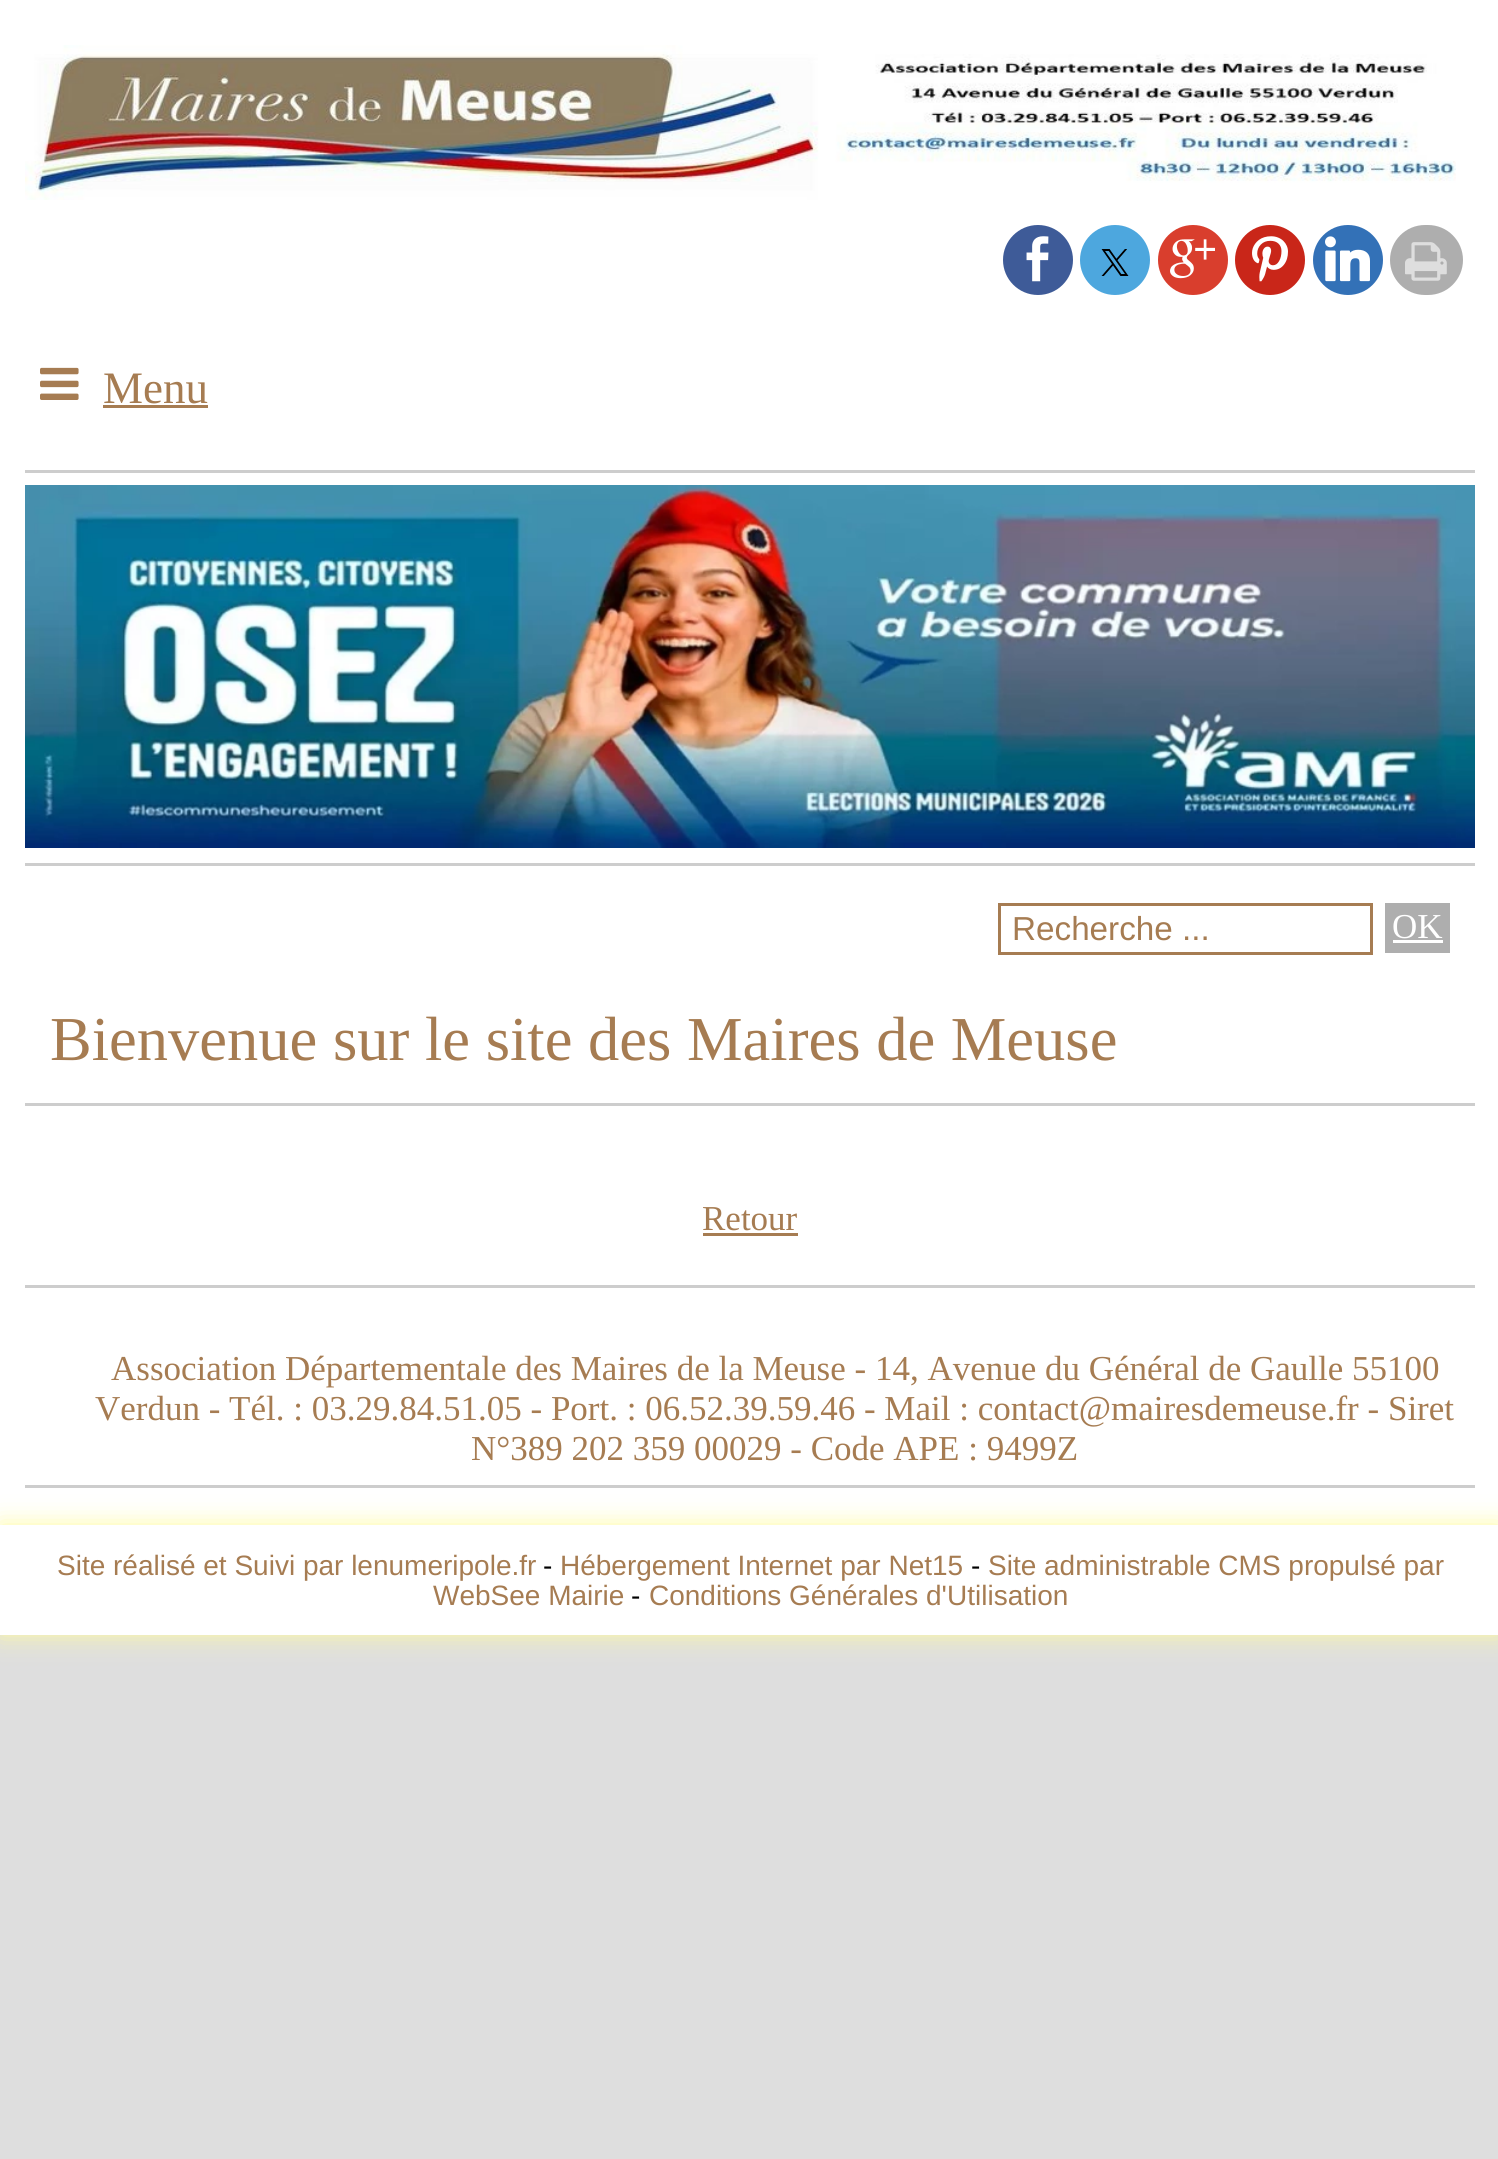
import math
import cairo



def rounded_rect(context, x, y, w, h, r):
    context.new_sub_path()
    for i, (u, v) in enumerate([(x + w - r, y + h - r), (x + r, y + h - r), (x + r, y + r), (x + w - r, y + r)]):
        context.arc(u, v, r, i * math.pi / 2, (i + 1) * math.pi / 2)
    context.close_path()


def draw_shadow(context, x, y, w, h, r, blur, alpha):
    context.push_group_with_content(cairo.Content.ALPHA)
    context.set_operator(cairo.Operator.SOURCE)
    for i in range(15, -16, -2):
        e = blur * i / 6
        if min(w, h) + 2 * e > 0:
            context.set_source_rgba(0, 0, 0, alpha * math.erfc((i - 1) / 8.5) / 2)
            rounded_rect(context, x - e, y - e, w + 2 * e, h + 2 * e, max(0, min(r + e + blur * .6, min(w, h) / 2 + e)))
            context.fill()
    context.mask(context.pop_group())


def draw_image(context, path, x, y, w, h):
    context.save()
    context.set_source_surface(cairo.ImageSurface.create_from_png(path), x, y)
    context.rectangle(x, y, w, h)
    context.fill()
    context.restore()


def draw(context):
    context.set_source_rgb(222 / 255, 222 / 255, 222 / 255)
    context.paint()
    context.set_source_rgb(1, 1, 1)
    context.rectangle(0, 0, 1498, 1525)
    context.fill()
    draw_image(context, "images/1.png", 25, 45, 1431, 155)
    context.set_source_rgb(62 / 255, 91 / 255, 152 / 255)
    context.arc(1038, 260, 35, 0, 2 * math.pi)
    context.fill()
    draw_image(context, "images/2.png", 1026, 236, 23, 46)
    context.set_source_rgb(77 / 255, 167 / 255, 222 / 255)
    context.arc(1115, 260, 35, 0, 2 * math.pi)
    context.fill()
    draw_image(context, "images/3.png", 1101, 249, 28, 27)
    context.set_source_rgb(217 / 255, 62 / 255, 45 / 255)
    context.arc(1193, 260, 35, 0, 2 * math.pi)
    context.fill()
    draw_image(context, "images/4.png", 1170, 239, 45, 40)
    context.set_source_rgb(201 / 255, 38 / 255, 25 / 255)
    context.arc(1270, 260, 35, 0, 2 * math.pi)
    context.fill()
    draw_image(context, "images/5.png", 1252, 236, 36, 46)
    context.set_source_rgb(51 / 255, 113 / 255, 183 / 255)
    context.arc(1348, 260, 35, 0, 2 * math.pi)
    context.fill()
    draw_image(context, "images/6.png", 1325, 236, 45, 46)
    context.set_source_rgb(174 / 255, 174 / 255, 174 / 255)
    rounded_rect(context, 1390, 225, 73, 70, 35)
    context.fill()
    draw_image(context, "images/7.png", 1405, 242, 42, 39)
    draw_image(context, "images/8.png", 40, 367, 39, 33)
    context.set_source_rgb(166 / 255, 124 / 255, 82 / 255)
    context.rectangle(103, 405, 105, 3)
    context.fill()
    context.set_source_rgb(205 / 255, 205 / 255, 205 / 255)
    context.rectangle(25, 470, 1450, 3)
    context.fill()
    draw_image(context, "images/9.png", 25, 485, 1450, 363)
    context.rectangle(25, 863, 1450, 3)
    context.fill()
    context.rectangle(999.5, 904.5, 372, 49)
    context.set_source_rgb(166 / 255, 124 / 255, 82 / 255)
    context.set_line_width(3)
    context.stroke()
    context.set_source_rgb(174 / 255, 174 / 255, 174 / 255)
    context.rectangle(1385, 903, 65, 50)
    context.fill()
    context.set_source_rgb(1, 1, 1)
    context.rectangle(1393, 940, 50, 3)
    context.fill()
    context.set_source_rgb(205 / 255, 205 / 255, 205 / 255)
    context.rectangle(25, 1103, 1450, 3)
    context.fill()
    context.set_source_rgb(166 / 255, 124 / 255, 82 / 255)
    context.rectangle(703, 1233, 95, 3)
    context.fill()
    context.set_source_rgb(205 / 255, 205 / 255, 205 / 255)
    context.rectangle(25, 1285, 1450, 3)
    context.fill()
    context.rectangle(25, 1485, 1450, 3)
    context.fill()
    context.set_source_rgb(1, 252 / 255, 158 / 255)
    draw_shadow(context, 0, 1525, 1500, 110, 0, 12.5, 1)
    context.set_source_rgb(1, 1, 1)
    context.rectangle(0, 1525, 1498, 110)
    context.fill()
    context.select_font_face("Liberation Serif")
    context.set_font_size(45)
    context.set_source_rgb(166 / 255, 124 / 255, 82 / 255)
    context.move_to(103, 403)
    context.show_text("Menu")
    context.select_font_face("Liberation Sans")
    context.set_font_size(33.25)
    context.move_to(1012, 940)
    context.show_text("Recherche ...")
    context.select_font_face("Liberation Serif")
    context.set_font_size(35)
    context.set_source_rgb(1, 1, 1)
    context.move_to(1392, 938)
    context.show_text("OK")
    context.set_font_size(62.5)
    context.set_source_rgb(166 / 255, 124 / 255, 82 / 255)
    context.move_to(50, 1060)
    context.show_text("Bienvenue sur le site des Maires de Meuse")
    context.set_font_size(35)
    context.move_to(702, 1230)
    context.show_text("Retour")
    context.move_to(111, 1380)
    context.show_text("Association Départementale des Maires de la Meuse - 14, Avenue du Général de Gaulle 55100")
    context.move_to(95, 1420)
    context.show_text("Verdun - Tél. : 03.29.84.51.05 - Port. : 06.52.39.59.46 - Mail : contact@mairesdemeuse.fr - Siret")
    context.move_to(471, 1460)
    context.show_text("N°389 202 359 00029 - Code APE : 9499Z")
    context.select_font_face("Liberation Sans")
    context.set_font_size(28)
    context.move_to(57, 1575)
    context.show_text("Site réalisé et Suivi par lenumeripole.fr")
    context.set_source_rgb(0, 0, 0)
    context.move_to(543, 1575)
    context.show_text("-")
    context.set_source_rgb(166 / 255, 124 / 255, 82 / 255)
    context.move_to(560, 1575)
    context.show_text("Hébergement Internet par Net15")
    context.set_source_rgb(0, 0, 0)
    context.move_to(971, 1575)
    context.show_text("-")
    context.set_source_rgb(166 / 255, 124 / 255, 82 / 255)
    context.move_to(988, 1575)
    context.show_text("Site administrable CMS propulsé par")
    context.move_to(433, 1605)
    context.show_text("WebSee Mairie")
    context.set_source_rgb(0, 0, 0)
    context.move_to(631, 1605)
    context.show_text("-")
    context.set_source_rgb(166 / 255, 124 / 255, 82 / 255)
    context.move_to(649, 1605)
    context.show_text("Conditions Générales d'Utilisation")


surface = cairo.ImageSurface(cairo.Format.RGB24, 1498, 2159)
context = cairo.Context(surface)
options = cairo.FontOptions()
options.set_hint_metrics(cairo.HintMetrics.OFF)
options.set_hint_style(cairo.HintStyle.NONE)
context.set_font_options(options)
context.set_miter_limit(4)
draw(context)
surface.write_to_png("out.png")
